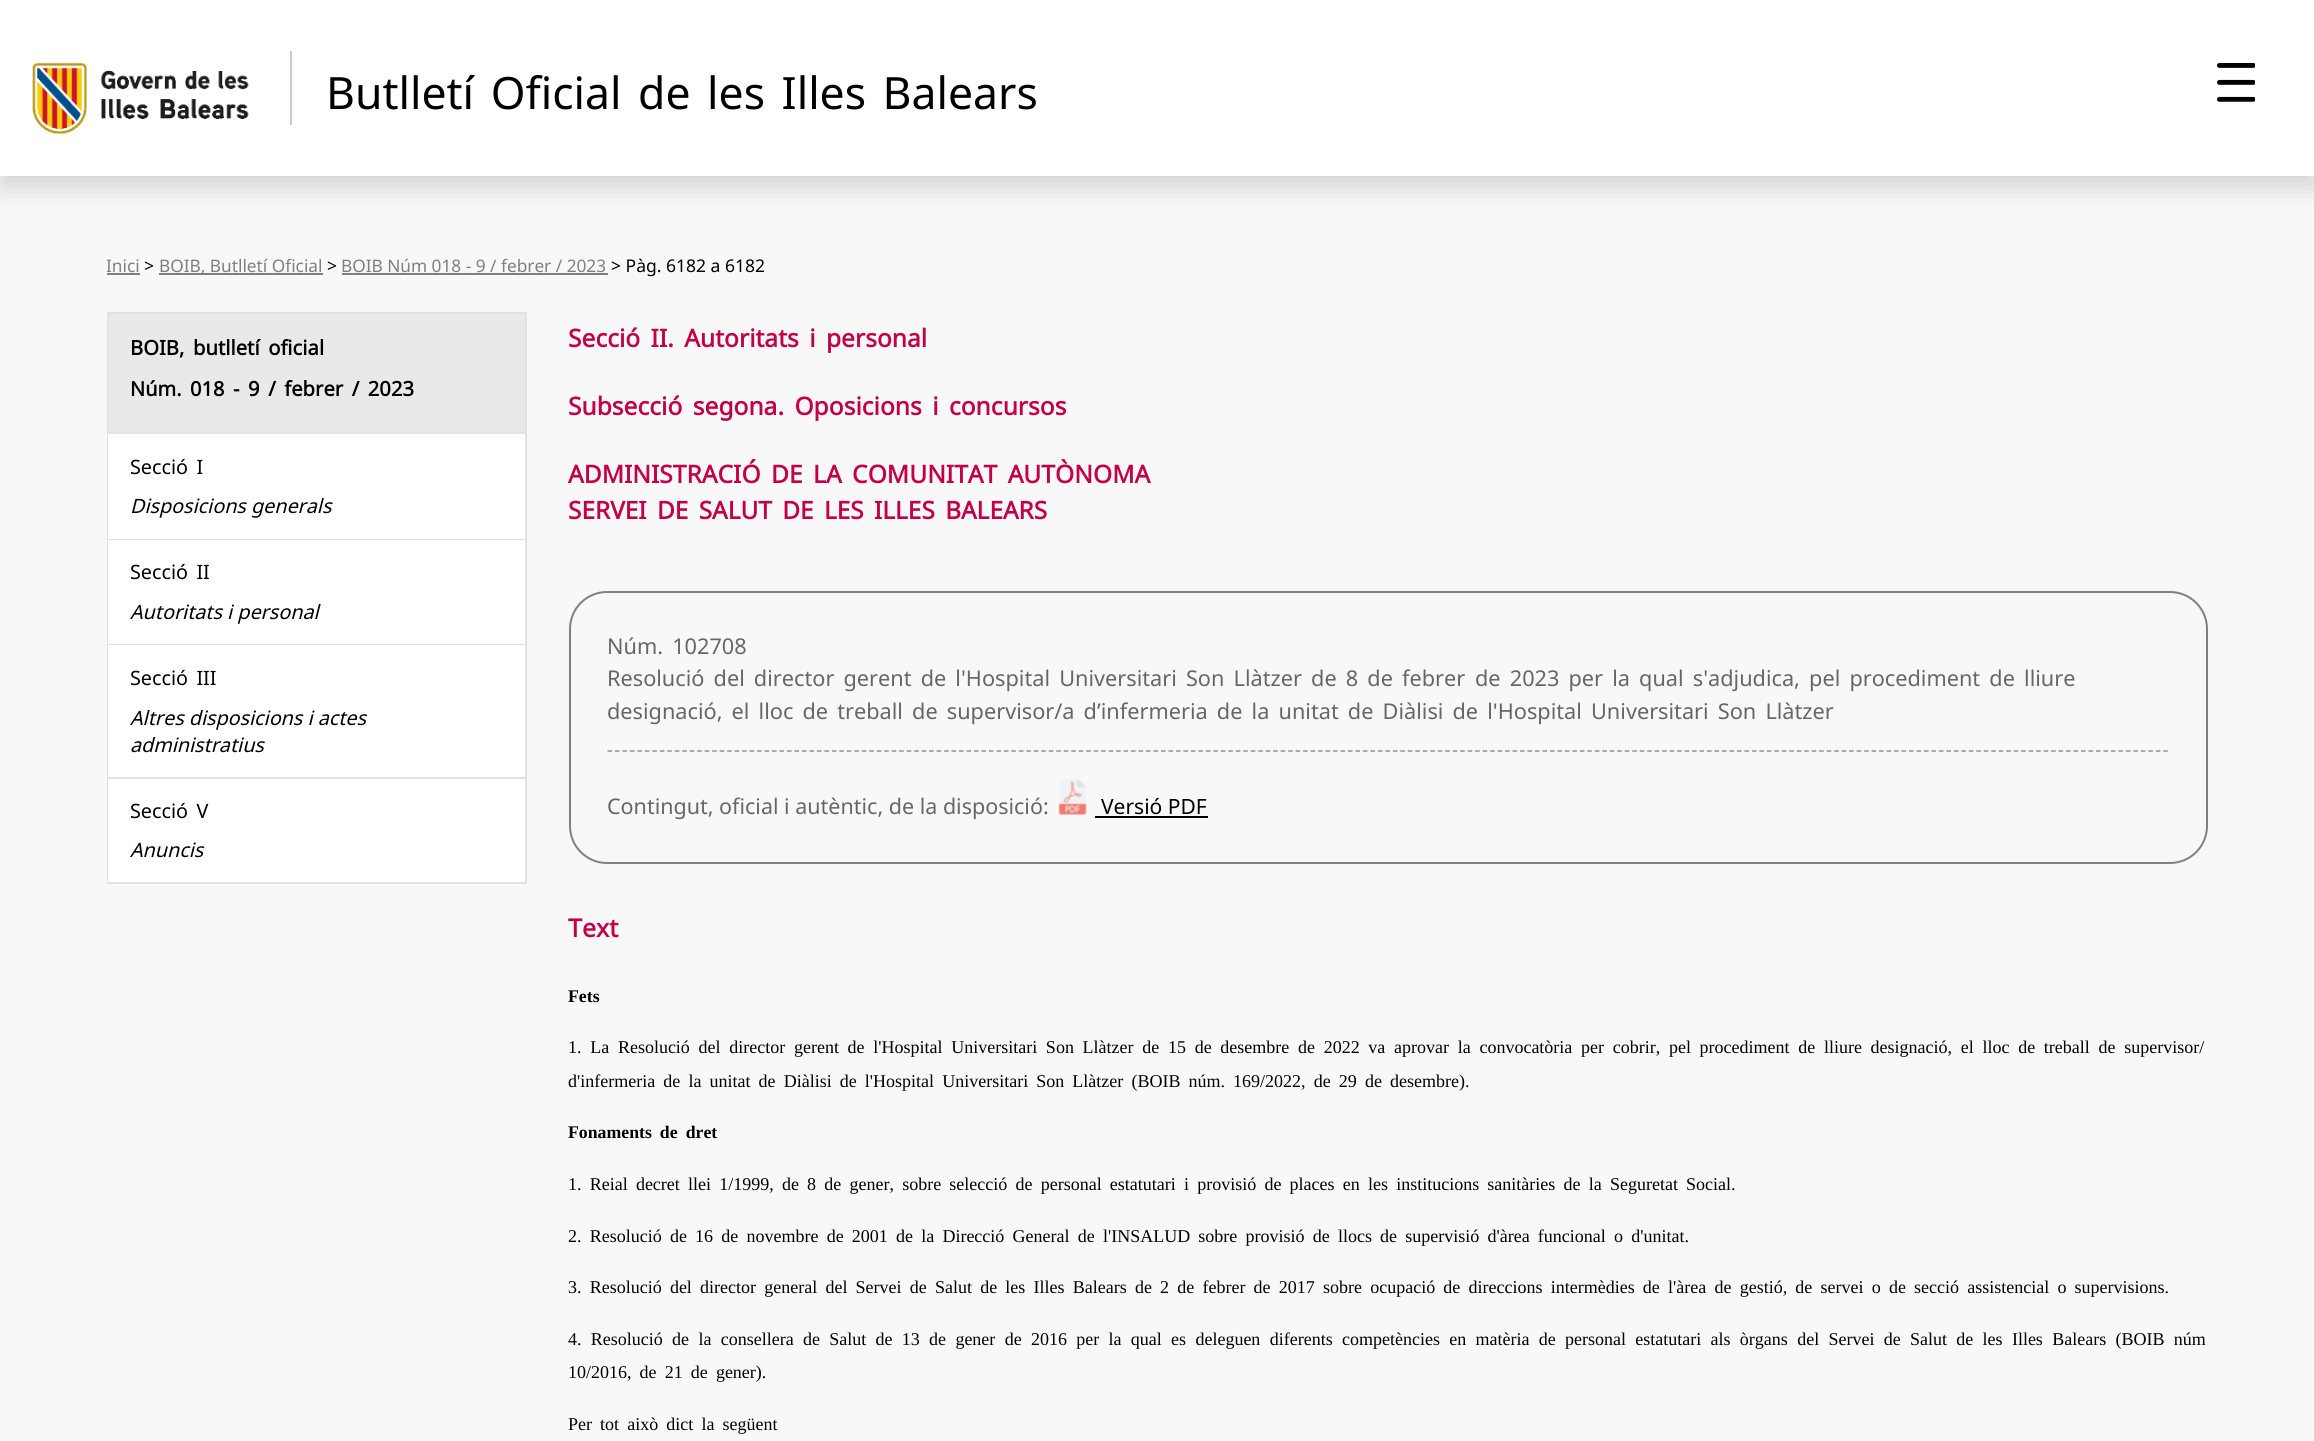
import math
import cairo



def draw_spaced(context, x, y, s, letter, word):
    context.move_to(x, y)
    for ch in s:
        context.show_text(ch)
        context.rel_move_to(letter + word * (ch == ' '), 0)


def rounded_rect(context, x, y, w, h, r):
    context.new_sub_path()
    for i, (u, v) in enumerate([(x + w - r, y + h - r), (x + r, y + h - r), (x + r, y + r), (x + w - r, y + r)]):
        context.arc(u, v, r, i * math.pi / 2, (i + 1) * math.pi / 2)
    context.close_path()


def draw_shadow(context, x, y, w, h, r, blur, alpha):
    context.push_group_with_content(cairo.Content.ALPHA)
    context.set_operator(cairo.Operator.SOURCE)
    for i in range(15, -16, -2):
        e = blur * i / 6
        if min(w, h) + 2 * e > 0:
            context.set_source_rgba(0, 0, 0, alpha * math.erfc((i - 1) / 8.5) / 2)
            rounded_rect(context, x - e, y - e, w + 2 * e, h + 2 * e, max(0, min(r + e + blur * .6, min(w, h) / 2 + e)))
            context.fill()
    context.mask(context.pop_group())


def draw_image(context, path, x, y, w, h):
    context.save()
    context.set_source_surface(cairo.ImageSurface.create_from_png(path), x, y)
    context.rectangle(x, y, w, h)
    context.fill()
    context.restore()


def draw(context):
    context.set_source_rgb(248 / 255, 248 / 255, 248 / 255)
    context.paint()
    context.set_source_rgb(0, 0, 0)
    draw_shadow(context, 0, 12, 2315, 176, 0, 12, 0.15)
    context.set_source_rgb(1, 1, 1)
    context.rectangle(0, 0, 2314, 176)
    context.fill()
    context.set_source_rgb(204 / 255, 204 / 255, 204 / 255)
    context.rectangle(290, 51, 2, 74)
    context.fill()
    draw_image(context, "images/1.png", 32, 62, 217, 73)
    draw_image(context, "images/2.png", 2217, 63, 38, 39)
    context.set_source_rgb(127 / 255, 127 / 255, 127 / 255)
    context.rectangle(107, 273, 33, 2)
    context.fill()
    context.rectangle(159, 273, 164, 2)
    context.fill()
    context.rectangle(342, 273, 266, 2)
    context.fill()
    context.set_source_rgb(233 / 255, 233 / 255, 233 / 255)
    context.rectangle(108, 313, 418, 120)
    context.fill_preserve()
    context.set_source_rgb(226 / 255, 226 / 255, 226 / 255)
    context.stroke()
    context.rectangle(525, 434, 2, 450)
    context.fill()
    context.rectangle(107, 434, 1, 450)
    context.fill()
    context.set_source_rgb(1, 1, 1)
    context.rectangle(108, 434, 417, 105)
    context.fill()
    context.set_source_rgb(226 / 255, 226 / 255, 226 / 255)
    context.rectangle(108, 539, 417, 1)
    context.fill()
    context.set_source_rgb(1, 1, 1)
    context.rectangle(108, 540, 417, 104)
    context.fill()
    context.set_source_rgb(226 / 255, 226 / 255, 226 / 255)
    context.rectangle(108, 644, 417, 1)
    context.fill()
    context.set_source_rgb(1, 1, 1)
    context.rectangle(108, 645, 417, 132)
    context.fill()
    context.set_source_rgb(226 / 255, 226 / 255, 226 / 255)
    context.rectangle(108, 777, 417, 2)
    context.fill()
    context.set_source_rgb(1, 1, 1)
    context.rectangle(108, 779, 417, 103)
    context.fill()
    context.set_source_rgb(226 / 255, 226 / 255, 226 / 255)
    context.rectangle(108, 882, 417, 2)
    context.fill()
    rounded_rect(context, 570, 592, 1637, 271, 37)
    context.set_source_rgb(128 / 255, 128 / 255, 128 / 255)
    context.stroke()
    context.new_path()
    context.move_to(607.5, 751)
    context.line_to(2169, 751)
    context.set_source_rgb(145 / 255, 145 / 255, 145 / 255)
    context.set_line_width(1.5)
    context.set_dash([4.5, 2.98])
    context.stroke()
    draw_image(context, "images/3.png", 1058, 778, 29, 37)
    context.set_source_rgb(0, 0, 0)
    context.rectangle(1095, 816, 113, 2)
    context.fill()
    context.select_font_face("Noto Sans")
    context.set_font_size(44.5)
    draw_spaced(context, 326, 109, "Butlletí Oficial de les Illes Balears", 0, 5)
    context.save()
    context.rectangle(107, 246, 2101, 33)
    context.clip()
    context.set_font_size(17.25)
    context.set_source_rgb(127 / 255, 127 / 255, 127 / 255)
    context.move_to(106, 272)
    context.show_text("Inici")
    context.restore()
    context.set_font_size(17.5)
    context.move_to(144, 272)
    context.show_text(">")
    context.set_font_size(17.25)
    context.set_source_rgb(127 / 255, 127 / 255, 127 / 255)
    context.move_to(159, 272)
    context.show_text("BOIB, Butlletí Oficial")
    context.set_font_size(17.5)
    context.set_source_rgb(0, 0, 0)
    context.move_to(327, 272)
    context.show_text(">")
    context.set_font_size(17.25)
    context.set_source_rgb(127 / 255, 127 / 255, 127 / 255)
    context.move_to(341, 272)
    context.show_text("BOIB Núm 018 - 9 / febrer / 2023")
    context.set_font_size(17.5)
    context.set_source_rgb(0, 0, 0)
    context.move_to(611, 272)
    context.show_text("> Pàg. 6182 a 6182")
    context.select_font_face("Noto Sans", cairo.FontSlant.NORMAL, cairo.FontWeight.BOLD)
    context.set_font_size(20.25)
    draw_spaced(context, 130, 355, "BOIB, butlletí oficial", 0, 3.25)
    context.set_font_size(20)
    draw_spaced(context, 130, 396, "Núm. 018", 0, 3.25)
    context.set_font_size(20.25)
    draw_spaced(context, 233, 396, "- 9 / febrer / 2023", 0, 3.25)
    context.select_font_face("Noto Sans")
    context.set_font_size(19.75)
    draw_spaced(context, 130, 474, "Secció I", 0, 3.25)
    context.select_font_face("Noto Sans", cairo.FontSlant.ITALIC)
    context.move_to(130, 513)
    context.show_text("Disposicions generals")
    context.select_font_face("Noto Sans")
    draw_spaced(context, 130, 579, "Secció II", 0, 3.25)
    context.select_font_face("Noto Sans", cairo.FontSlant.ITALIC)
    context.move_to(130, 619)
    context.show_text("Autoritats i personal")
    context.select_font_face("Noto Sans")
    draw_spaced(context, 130, 685, "Secció III", 0, 3.25)
    context.select_font_face("Noto Sans", cairo.FontSlant.ITALIC)
    context.move_to(130, 725)
    context.show_text("Altres disposicions i actes")
    context.move_to(130, 752)
    context.show_text("administratius")
    context.select_font_face("Noto Sans")
    draw_spaced(context, 130, 818, "Secció V", 0, 3.25)
    context.select_font_face("Noto Sans", cairo.FontSlant.ITALIC)
    context.move_to(130, 857)
    context.show_text("Anuncis")
    context.select_font_face("Noto Sans", cairo.FontSlant.NORMAL, cairo.FontWeight.BOLD)
    context.set_font_size(24.6)
    context.set_source_rgb(195 / 255, 0, 69 / 255)
    draw_spaced(context, 568, 347, "Secció II. Autoritats i personal", 0, 4)
    draw_spaced(context, 568, 415, "Subsecció segona. Oposicions i concursos", 0, 4)
    draw_spaced(context, 568, 483, "ADMINISTRACIÓ DE LA COMUNITAT AUTÒNOMA", 0, 4)
    context.set_font_size(24.4)
    draw_spaced(context, 568, 519, "SERVEI DE SALUT DE LES ILLES BALEARS", 0, 4)
    context.select_font_face("Noto Sans")
    context.set_font_size(21.7)
    context.set_source_rgb(102 / 255, 102 / 255, 102 / 255)
    draw_spaced(context, 607, 654, "Núm. 102708", 0, 3.5)
    draw_spaced(context, 607, 686, "Resolució del director gerent de l'Hospital Universitari Son Llàtzer de 8 de febrer", 0, 3.5)
    draw_spaced(context, 1475, 686, "de 2023 per la qual s'adjudica, pel procediment de lliure", 0, 3.5)
    draw_spaced(context, 607, 719, "designació, el lloc de treball de supervisor/a d’infermeria de la unitat de Diàlisi de l'Hospital Universitari Son Llàtzer", 0, 3.5)
    context.set_font_size(21.5)
    context.move_to(607, 814)
    context.show_text("Contingut, oficial i autèntic, de la disposició:")
    context.set_font_size(21)
    context.set_source_rgb(0, 0, 0)
    context.move_to(1101, 814)
    context.show_text("Versió PDF")
    context.select_font_face("Noto Sans", cairo.FontSlant.NORMAL, cairo.FontWeight.BOLD)
    context.set_font_size(25)
    context.set_source_rgb(195 / 255, 0, 69 / 255)
    context.move_to(568, 937)
    context.show_text("Text")
    context.select_font_face("Liberation Serif", cairo.FontSlant.NORMAL, cairo.FontWeight.BOLD)
    context.set_font_size(17.75)
    context.set_source_rgb(0, 0, 0)
    context.move_to(568, 1002)
    context.show_text("Fets")
    context.select_font_face("Liberation Serif")
    context.set_font_size(18)
    draw_spaced(context, 568, 1053, "1. La Resolució del director gerent de l'Hospital Universitari Son Llàtzer de 15 de desembre de 2022 va aprovar la convocatòria per cobrir, pel procediment de lliure designació, el lloc de treball de supervisor/", 0, 4.2)
    draw_spaced(context, 568, 1087, "d'infermeria de la unitat de Diàlisi de l'Hospital Universitari Son Llàtzer (BOIB núm. 169/2022, de 29 de desembre).", 0, 3.6)
    context.select_font_face("Liberation Serif", cairo.FontSlant.NORMAL, cairo.FontWeight.BOLD)
    context.set_font_size(17.75)
    draw_spaced(context, 568, 1138, "Fonaments de dret", 0, 3.6)
    context.select_font_face("Liberation Serif")
    context.set_font_size(18)
    draw_spaced(context, 568, 1190, "1. Reial decret llei 1/1999, de 8 de gener, sobre selecció de personal estatutari i provisió de places en les institucions sanitàries de la Seguretat Social.", 0, 3.7)
    draw_spaced(context, 568, 1242, "2. Resolució de 16 de novembre de 2001 de la Direcció General de l'INSALUD sobre provisió de llocs de supervisió d'àrea funcional o d'unitat.", 0, 3.7)
    draw_spaced(context, 568, 1293, "3. Resolució del director general del Servei de Salut de les Illes Balears de 2 de febrer de 2017 sobre ocupació de direccions intermèdies de l'àrea de gestió, de servei o de secció assistencial o supervisions.", 0, 3.7)
    draw_spaced(context, 568, 1345, "4. Resolució de la consellera de Salut de 13 de gener de 2016 per la qual es deleguen diferents competències en matèria de personal estatutari als òrgans del Servei de Salut de les Illes Balears (BOIB núm", 0, 4.8)
    draw_spaced(context, 568, 1378, "10/2016, de 21 de gener).", 0, 3.6)
    draw_spaced(context, 568, 1430, "Per tot això dict la següent", 0, 3.6)


surface = cairo.ImageSurface(cairo.Format.RGB24, 2314, 1441)
context = cairo.Context(surface)
options = cairo.FontOptions()
options.set_hint_metrics(cairo.HintMetrics.OFF)
options.set_hint_style(cairo.HintStyle.NONE)
context.set_font_options(options)
context.set_miter_limit(4)
draw(context)
surface.write_to_png("out.png")
